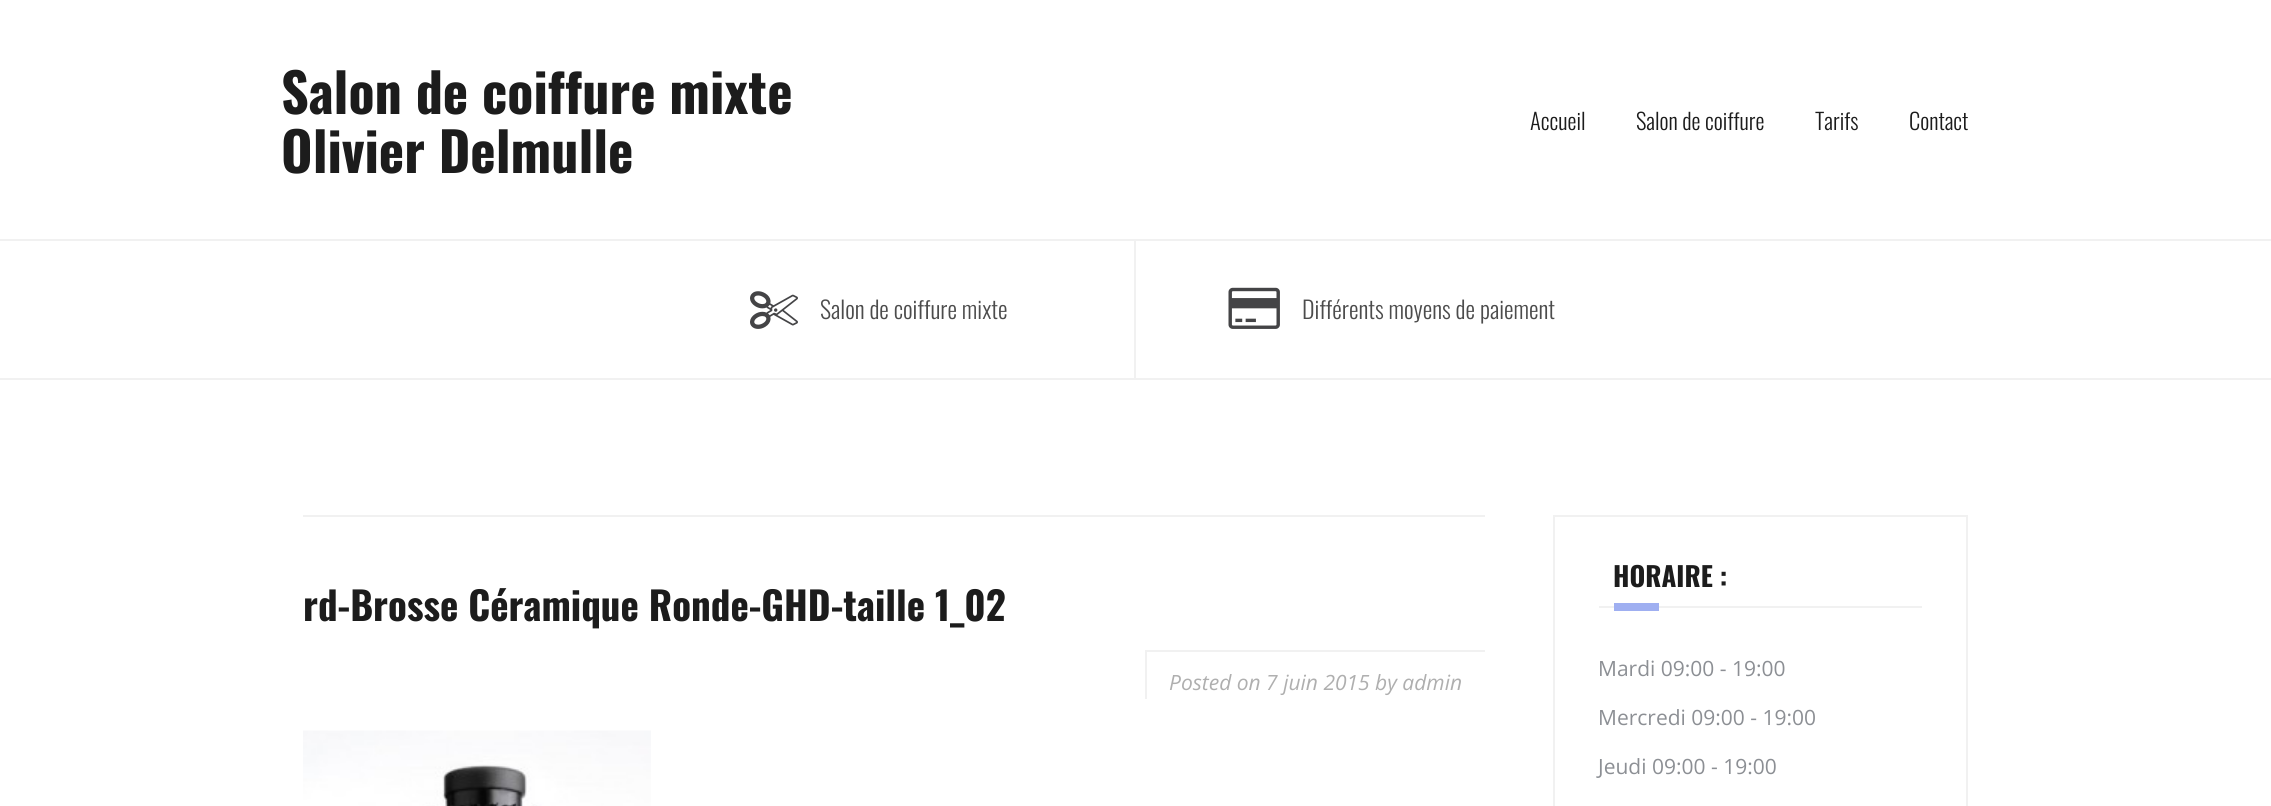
import math
import cairo



def draw_image(context, path, x, y, w, h):
    context.save()
    context.set_source_surface(cairo.ImageSurface.create_from_png(path), x, y)
    context.rectangle(x, y, w, h)
    context.fill()
    context.restore()


def draw(context):
    context.set_source_rgb(1, 1, 1)
    context.paint()
    context.set_source_rgb(241 / 255, 241 / 255, 241 / 255)
    context.rectangle(0, 239, 2271, 2)
    context.fill()
    context.rectangle(0, 378, 2271, 2)
    context.fill()
    context.rectangle(1134, 240, 2, 138)
    context.fill()
    draw_image(context, "images/1.png", 750, 291, 48, 38)
    draw_image(context, "images/2.png", 1228, 287, 52, 42)
    context.rectangle(303, 515, 1182, 2)
    context.fill()
    context.rectangle(1145, 650, 340, 2)
    context.fill()
    context.rectangle(1145, 650, 2, 49)
    context.fill()
    draw_image(context, "images/3.png", 303, 730, 348, 76)
    context.rectangle(1554, 516, 413, 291)
    context.stroke()
    context.rectangle(1599, 606, 323, 2)
    context.fill()
    context.set_source_rgb(159 / 255, 175 / 255, 241 / 255)
    context.rectangle(1614, 603, 45, 8)
    context.fill()
    context.select_font_face("Oswald", cairo.FontSlant.NORMAL, cairo.FontWeight.BOLD)
    context.set_font_size(54)
    context.set_source_rgb(28 / 255, 28 / 255, 28 / 255)
    context.move_to(281, 114)
    context.show_text("Salon de coiffure mixte")
    context.move_to(281, 173)
    context.show_text("Olivier Delmulle")
    context.select_font_face("Oswald Light")
    context.set_font_size(22.5)
    context.move_to(1530, 130)
    context.show_text("Accueil")
    context.move_to(1636, 130)
    context.show_text("Salon de coiffure")
    context.move_to(1815, 130)
    context.show_text("Tarifs")
    context.move_to(1909, 130)
    context.show_text("Contact")
    context.set_font_size(24)
    context.set_source_rgb(76 / 255, 76 / 255, 76 / 255)
    context.move_to(820, 319)
    context.show_text("Salon de coiffure mixte")
    context.move_to(1302, 319)
    context.show_text("Différents moyens de paiement")
    context.select_font_face("Oswald", cairo.FontSlant.NORMAL, cairo.FontWeight.BOLD)
    context.set_font_size(39)
    context.set_source_rgb(28 / 255, 28 / 255, 28 / 255)
    context.move_to(303, 621)
    context.show_text("rd-Brosse Céramique Ronde-GHD-taille 1_02")
    context.select_font_face("Open Sans", cairo.FontSlant.ITALIC)
    context.set_font_size(21)
    context.set_source_rgb(175 / 255, 175 / 255, 175 / 255)
    context.move_to(1169, 690)
    context.show_text("Posted on 7 juin 2015 by admin")
    context.select_font_face("Oswald", cairo.FontSlant.NORMAL, cairo.FontWeight.BOLD)
    context.set_font_size(27)
    context.set_source_rgb(28 / 255, 28 / 255, 28 / 255)
    context.move_to(1613, 587)
    context.show_text("HORAIRE :")
    context.select_font_face("Open Sans")
    context.set_font_size(21)
    context.set_source_rgb(140 / 255, 143 / 255, 148 / 255)
    context.move_to(1598, 676)
    context.show_text("Mardi 09:00 - 19:00")
    context.move_to(1598, 725)
    context.show_text("Mercredi 09:00 - 19:00")
    context.move_to(1598, 774)
    context.show_text("Jeudi 09:00 - 19:00")


surface = cairo.ImageSurface(cairo.Format.RGB24, 2271, 806)
context = cairo.Context(surface)
options = cairo.FontOptions()
options.set_hint_metrics(cairo.HintMetrics.OFF)
options.set_hint_style(cairo.HintStyle.NONE)
context.set_font_options(options)
context.set_miter_limit(4)
draw(context)
surface.write_to_png("out.png")
